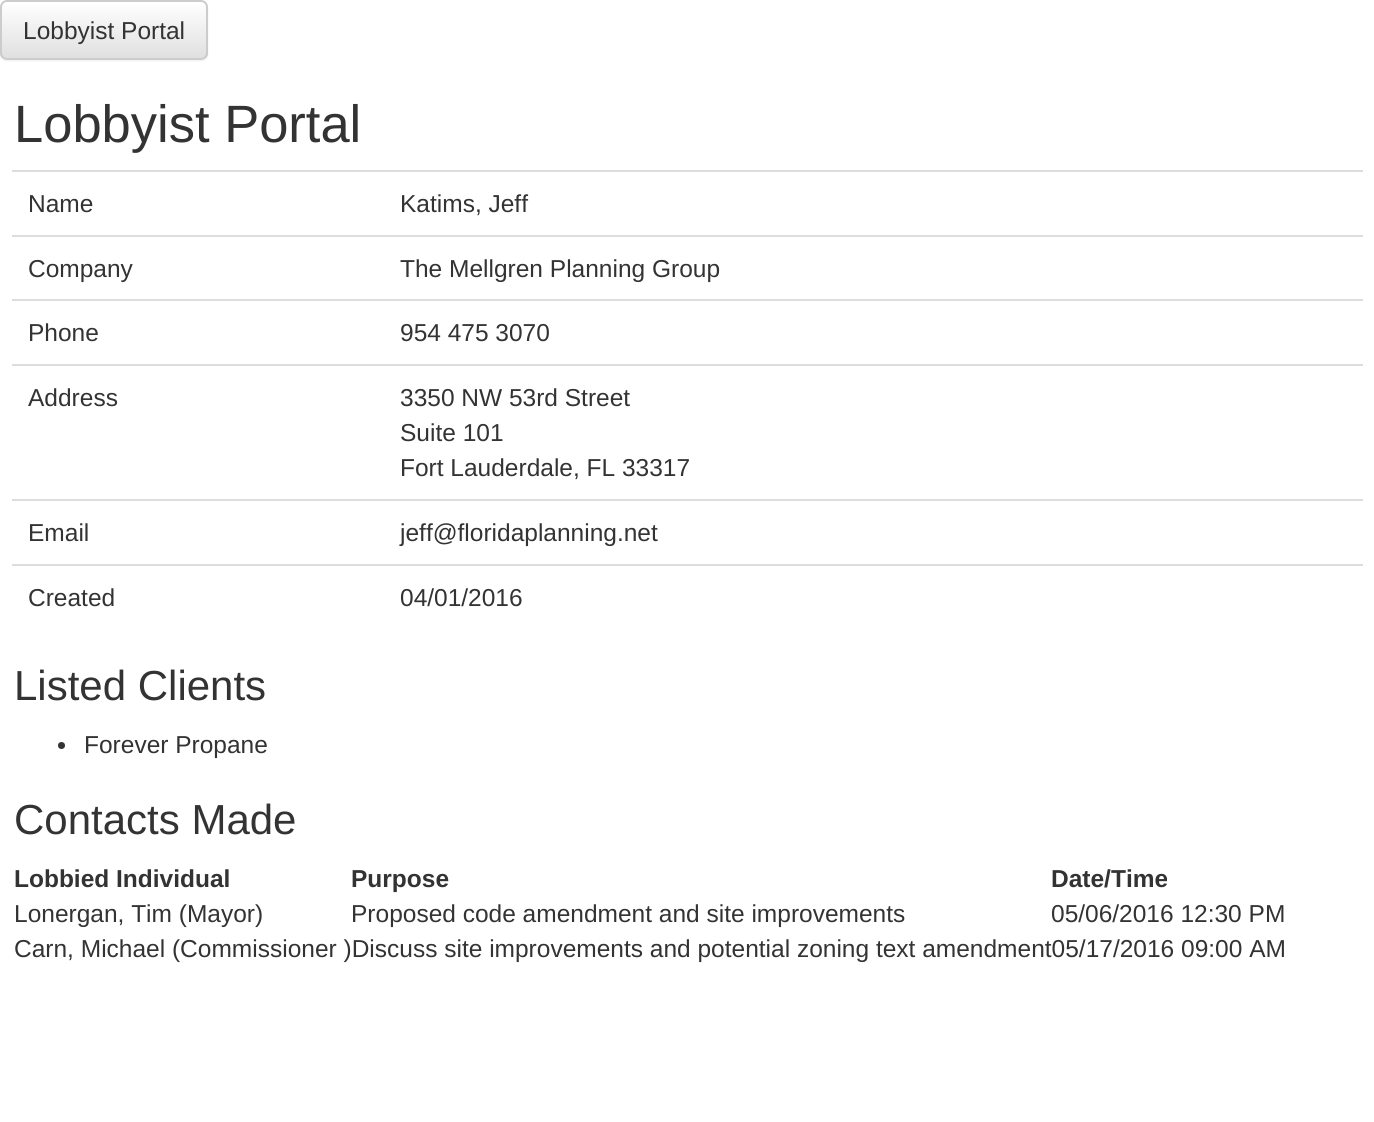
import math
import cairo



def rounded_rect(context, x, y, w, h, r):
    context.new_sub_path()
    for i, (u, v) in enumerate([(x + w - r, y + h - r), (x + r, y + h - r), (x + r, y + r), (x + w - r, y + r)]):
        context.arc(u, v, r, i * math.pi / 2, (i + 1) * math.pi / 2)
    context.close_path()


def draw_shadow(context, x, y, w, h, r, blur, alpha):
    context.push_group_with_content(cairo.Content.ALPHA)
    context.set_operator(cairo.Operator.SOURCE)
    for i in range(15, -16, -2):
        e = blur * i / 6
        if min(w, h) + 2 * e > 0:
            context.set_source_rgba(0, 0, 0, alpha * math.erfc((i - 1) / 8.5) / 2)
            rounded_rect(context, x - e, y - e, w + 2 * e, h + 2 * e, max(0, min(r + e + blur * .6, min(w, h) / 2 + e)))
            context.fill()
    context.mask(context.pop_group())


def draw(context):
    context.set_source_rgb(1, 1, 1)
    context.paint()
    context.set_source_rgb(0, 0, 0)
    draw_shadow(context, 0, 2, 208, 59, 7, 1, 0.07)
    context.save()
    rounded_rect(context, 0, 0, 208, 60, 7)
    context.clip()
    gradient = cairo.LinearGradient(104, 1.7, 104, 58)
    gradient.add_color_stop_rgba(0, 1, 1, 1, 1)
    gradient.add_color_stop_rgba(1, 224 / 255, 224 / 255, 224 / 255, 1)
    context.set_source(gradient)
    context.rectangle(0, 2, 208, 56)
    context.fill()
    context.restore()
    context.set_source_rgba(1, 1, 1, 0.15)
    context.new_path()
    context.move_to(7, 4)
    context.line_to(201, 4)
    context.curve_to(204, 4, 206, 6, 206, 9)
    context.line_to(206, 54)
    context.line_to(206, 57)
    context.curve_to(206, 56, 207, 54, 207, 53)
    context.line_to(207, 7)
    context.curve_to(207, 4, 205, 2, 202, 2)
    context.line_to(7, 2)
    context.curve_to(4, 2, 2, 4, 2, 7)
    context.line_to(2, 9)
    context.curve_to(2, 6, 4, 4, 7, 4)
    context.close_path()
    context.fill()
    rounded_rect(context, 1, 1, 206, 58, 6)
    context.set_source_rgb(204 / 255, 204 / 255, 204 / 255)
    context.stroke()
    context.set_source_rgb(221 / 255, 221 / 255, 221 / 255)
    context.rectangle(12, 170, 1351, 2)
    context.fill()
    context.rectangle(12, 235, 1351, 2)
    context.fill()
    context.rectangle(12, 299, 1351, 2)
    context.fill()
    context.rectangle(12, 364, 1351, 2)
    context.fill()
    context.rectangle(12, 499, 1351, 2)
    context.fill()
    context.rectangle(12, 564, 1351, 2)
    context.fill()
    context.set_source_rgb(51 / 255, 51 / 255, 51 / 255)
    context.arc(61.5, 745.5, 3.5, 0, 2 * math.pi)
    context.fill()
    context.select_font_face("Liberation Sans")
    context.set_font_size(24.5)
    context.move_to(23, 39)
    context.show_text("Lobbyist Portal")
    context.set_font_size(52.5)
    context.move_to(14, 142)
    context.show_text("Lobbyist Portal")
    context.set_font_size(24.5)
    context.move_to(28, 212)
    context.show_text("Name")
    context.move_to(400, 212)
    context.show_text("Katims, Jeff")
    context.move_to(28, 277)
    context.show_text("Company")
    context.move_to(400, 277)
    context.show_text("The Mellgren Planning Group")
    context.move_to(28, 341)
    context.show_text("Phone")
    context.move_to(400, 341)
    context.show_text("954 475 3070")
    context.move_to(28, 406)
    context.show_text("Address")
    context.move_to(400, 406)
    context.show_text("3350 NW 53rd Street")
    context.move_to(400, 441)
    context.show_text("Suite 101")
    context.move_to(400, 476)
    context.show_text("Fort Lauderdale, FL 33317")
    context.move_to(28, 541)
    context.show_text("Email")
    context.move_to(400, 541)
    context.show_text("jeff@floridaplanning.net")
    context.move_to(28, 606)
    context.show_text("Created")
    context.move_to(400, 606)
    context.show_text("04/01/2016")
    context.set_font_size(42)
    context.move_to(14, 700)
    context.show_text("Listed Clients")
    context.set_font_size(24.5)
    context.move_to(84, 753)
    context.show_text("Forever Propane")
    context.set_font_size(42)
    context.move_to(14, 834)
    context.show_text("Contacts Made")
    context.select_font_face("Liberation Sans", cairo.FontSlant.NORMAL, cairo.FontWeight.BOLD)
    context.set_font_size(24.5)
    context.move_to(14, 887)
    context.show_text("Lobbied Individual")
    context.move_to(351, 887)
    context.show_text("Purpose")
    context.move_to(1051, 887)
    context.show_text("Date/Time")
    context.select_font_face("Liberation Sans")
    context.move_to(14, 922)
    context.show_text("Lonergan, Tim (Mayor)")
    context.move_to(351, 922)
    context.show_text("Proposed code amendment and site improvements")
    context.move_to(1051, 922)
    context.show_text("05/06/2016 12:30 PM")
    context.move_to(14, 957)
    context.show_text("Carn, Michael (Commissioner )Discuss site improvements and potential zoning text amendment05/17/2016 09:00 AM")


surface = cairo.ImageSurface(cairo.Format.RGB24, 1374, 1122)
context = cairo.Context(surface)
options = cairo.FontOptions()
options.set_hint_metrics(cairo.HintMetrics.OFF)
options.set_hint_style(cairo.HintStyle.NONE)
context.set_font_options(options)
context.set_miter_limit(4)
draw(context)
surface.write_to_png("out.png")
